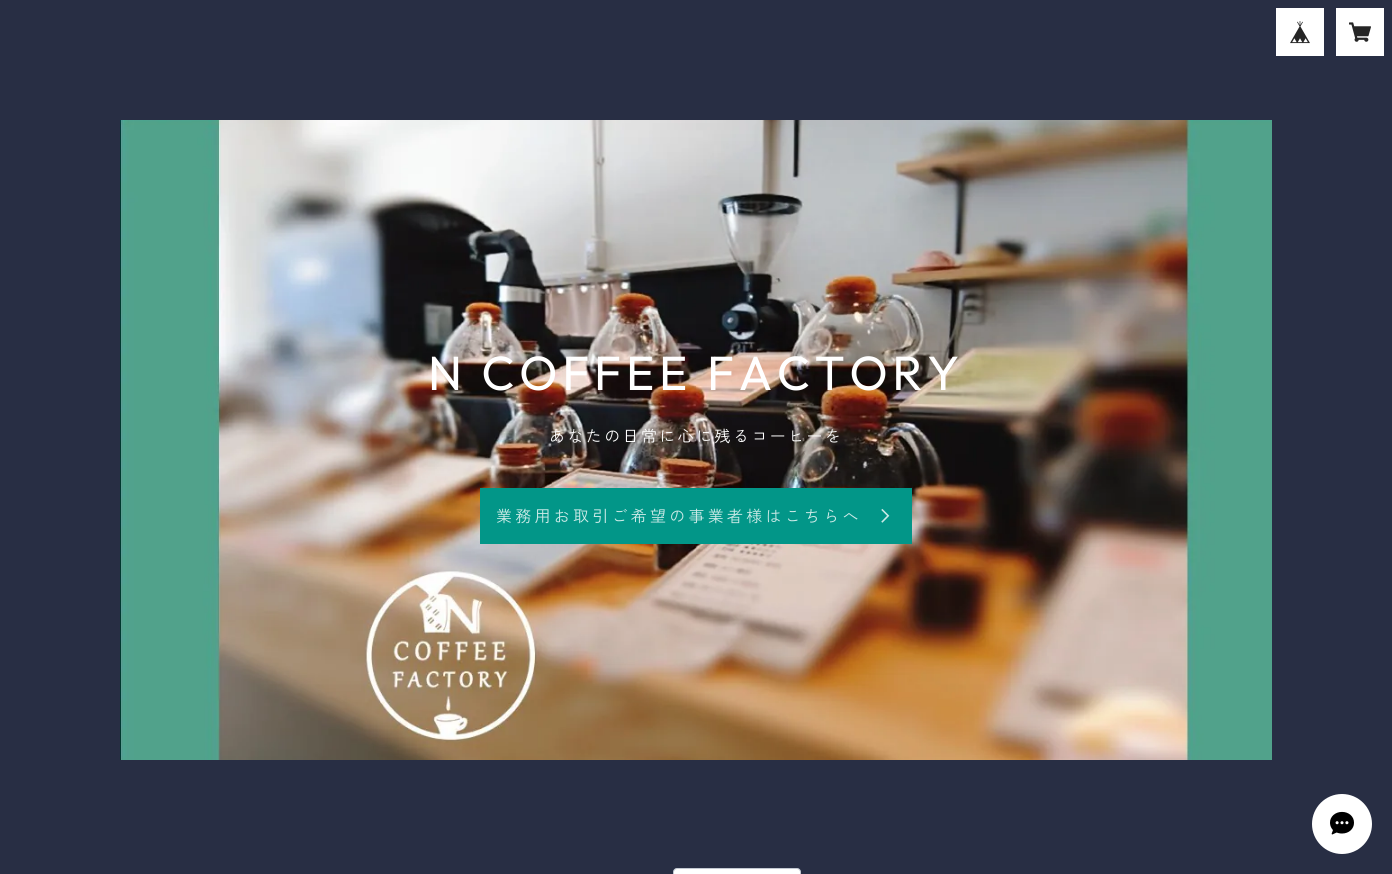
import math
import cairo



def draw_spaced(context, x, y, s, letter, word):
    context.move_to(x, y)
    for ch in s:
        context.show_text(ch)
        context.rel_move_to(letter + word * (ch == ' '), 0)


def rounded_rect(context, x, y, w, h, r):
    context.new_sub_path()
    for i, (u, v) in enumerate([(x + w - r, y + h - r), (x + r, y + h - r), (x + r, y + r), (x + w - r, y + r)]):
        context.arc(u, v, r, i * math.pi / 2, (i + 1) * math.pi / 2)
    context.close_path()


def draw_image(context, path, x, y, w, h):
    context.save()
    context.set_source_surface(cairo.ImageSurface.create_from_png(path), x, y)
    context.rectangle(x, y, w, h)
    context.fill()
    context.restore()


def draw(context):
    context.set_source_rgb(40 / 255, 46 / 255, 68 / 255)
    context.paint()
    context.set_source_rgb(1, 1, 1)
    context.rectangle(1276, 8, 48, 48)
    context.fill()
    draw_image(context, "images/1.png", 1290, 21, 20, 23)
    context.rectangle(1336, 8, 48, 48)
    context.fill()
    draw_image(context, "images/2.png", 1349, 22, 22, 20)
    draw_image(context, "images/3.png", 120, 120, 1152, 640)
    context.set_source_rgb(2 / 255, 150 / 255, 136 / 255)
    context.rectangle(480, 488, 432, 56)
    context.fill()
    draw_image(context, "images/4.png", 881, 508, 9, 15)
    context.set_source_rgb(1, 1, 1)
    rounded_rect(context, 673.5, 868.5, 127, 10, 3.5)
    context.fill_preserve()
    context.set_source_rgb(194 / 255, 200 / 255, 210 / 255)
    context.set_line_width(1)
    context.stroke()
    context.set_source_rgb(1, 1, 1)
    context.arc(1342, 824, 30, 0, 2 * math.pi)
    context.fill()
    draw_image(context, "images/5.png", 1330, 811, 24, 24)
    context.select_font_face("Outfit")
    context.set_font_size(48)
    draw_spaced(context, 428, 390, "N COFFEE FACTORY", 4.75, 0)
    context.select_font_face("Zen Kaku Gothic New")
    context.set_font_size(16)
    draw_spaced(context, 549, 442, "あなたの日常に心に残るコーヒーを", 2.4, 0)
    context.set_source_rgb(204 / 255, 234 / 255, 231 / 255)
    draw_spaced(context, 496, 522, "業務用お取引ご希望の事業者様はこちらへ", 3.25, 0)


surface = cairo.ImageSurface(cairo.Format.RGB24, 1392, 874)
context = cairo.Context(surface)
options = cairo.FontOptions()
options.set_hint_metrics(cairo.HintMetrics.OFF)
options.set_hint_style(cairo.HintStyle.NONE)
context.set_font_options(options)
context.set_miter_limit(4)
draw(context)
surface.write_to_png("out.png")
